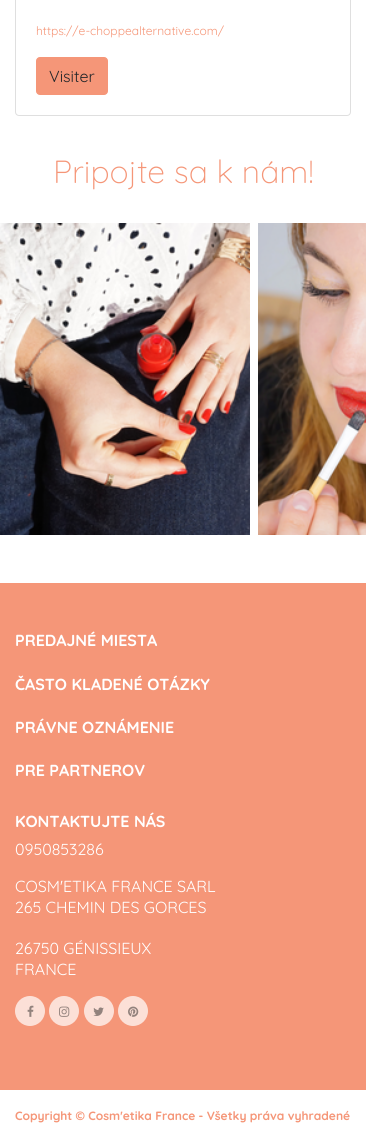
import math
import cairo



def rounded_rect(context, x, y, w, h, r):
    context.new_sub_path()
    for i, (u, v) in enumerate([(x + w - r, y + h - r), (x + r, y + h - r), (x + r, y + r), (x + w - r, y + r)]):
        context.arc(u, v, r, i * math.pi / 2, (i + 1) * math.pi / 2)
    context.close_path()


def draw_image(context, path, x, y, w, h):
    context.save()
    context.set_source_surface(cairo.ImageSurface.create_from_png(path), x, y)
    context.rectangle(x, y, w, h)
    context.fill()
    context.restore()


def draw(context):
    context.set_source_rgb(1, 1, 1)
    context.paint()
    rounded_rect(context, 15.5, -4.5, 335, 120, 3.5)
    context.set_source_rgb(223 / 255, 223 / 255, 223 / 255)
    context.set_line_width(1)
    context.stroke()
    context.set_source_rgb(245 / 255, 150 / 255, 120 / 255)
    rounded_rect(context, 36.5, 57.5, 71, 37, 3.5)
    context.fill_preserve()
    context.stroke()
    draw_image(context, "images/1.png", 0, 223, 250, 312)
    draw_image(context, "images/2.png", 258, 223, 108, 312)
    context.rectangle(0, 583, 366, 507)
    context.fill()
    context.set_source_rgb(252 / 255, 224 / 255, 215 / 255)
    context.arc(30, 1011, 15, 0, 2 * math.pi)
    context.fill()
    draw_image(context, "images/3.png", 27, 1005, 7, 12)
    context.arc(64, 1011, 15, 0, 2 * math.pi)
    context.fill()
    draw_image(context, "images/4.png", 59, 1006, 11, 11)
    context.arc(99, 1011, 15, 0, 2 * math.pi)
    context.fill()
    draw_image(context, "images/5.png", 93, 1007, 11, 9)
    context.arc(133, 1011, 15, 0, 2 * math.pi)
    context.fill()
    draw_image(context, "images/6.png", 128, 1006, 11, 11)
    context.select_font_face("Quicksand")
    context.set_font_size(12)
    context.set_source_rgb(245 / 255, 150 / 255, 120 / 255)
    context.move_to(36, 35)
    context.show_text("https://e-choppealternative.com/")
    context.set_font_size(16)
    context.set_source_rgb(33 / 255, 37 / 255, 41 / 255)
    context.move_to(49, 82)
    context.show_text("Visiter")
    context.select_font_face("Quicksand Light")
    context.set_font_size(32)
    context.set_source_rgb(245 / 255, 150 / 255, 120 / 255)
    context.move_to(53, 183)
    context.show_text("Pripojte sa k nám!")
    context.select_font_face("Quicksand", cairo.FontSlant.NORMAL, cairo.FontWeight.BOLD)
    context.set_font_size(16)
    context.set_source_rgb(1, 1, 1)
    context.move_to(15, 646)
    context.show_text("PREDAJNÉ MIESTA")
    context.move_to(15, 690)
    context.show_text("ČASTO KLADENÉ OTÁZKY")
    context.move_to(15, 733)
    context.show_text("PRÁVNE OZNÁMENIE")
    context.move_to(15, 776)
    context.show_text("PRE PARTNEROV")
    context.move_to(15, 827)
    context.show_text("KONTAKTUJTE NÁS")
    context.select_font_face("Quicksand")
    context.move_to(15, 855)
    context.show_text("0950853286")
    context.move_to(15, 892)
    context.show_text("COSM'ETIKA FRANCE SARL")
    context.move_to(15, 913)
    context.show_text("265 CHEMIN DES GORCES")
    context.move_to(15, 954)
    context.show_text("26750 GÉNISSIEUX")
    context.move_to(15, 975)
    context.show_text("FRANCE")
    context.select_font_face("Quicksand", cairo.FontSlant.NORMAL, cairo.FontWeight.BOLD)
    context.set_font_size(12)
    context.set_source_rgb(245 / 255, 150 / 255, 120 / 255)
    context.move_to(15, 1120)
    context.show_text("Copyright © Cosm'etika France - Všetky práva vyhradené")


surface = cairo.ImageSurface(cairo.Format.RGB24, 366, 1142)
context = cairo.Context(surface)
options = cairo.FontOptions()
options.set_hint_metrics(cairo.HintMetrics.OFF)
options.set_hint_style(cairo.HintStyle.NONE)
context.set_font_options(options)
context.set_miter_limit(4)
draw(context)
surface.write_to_png("out.png")
